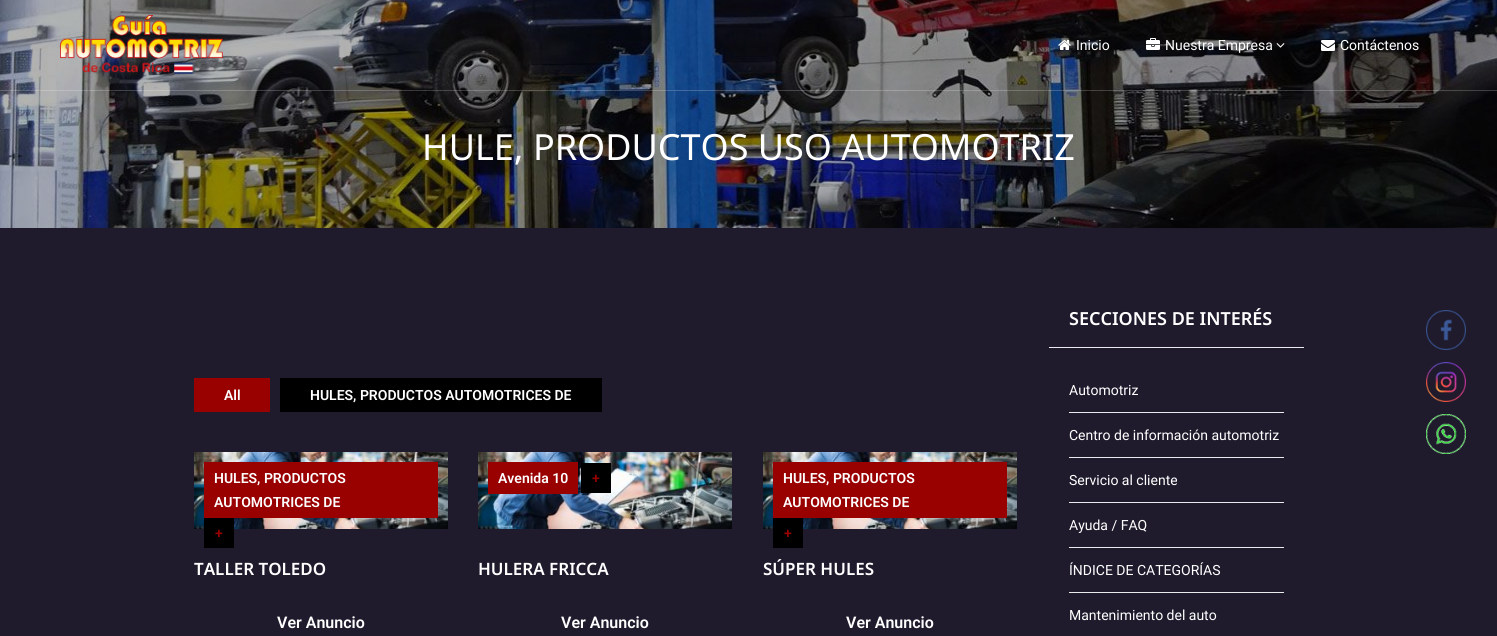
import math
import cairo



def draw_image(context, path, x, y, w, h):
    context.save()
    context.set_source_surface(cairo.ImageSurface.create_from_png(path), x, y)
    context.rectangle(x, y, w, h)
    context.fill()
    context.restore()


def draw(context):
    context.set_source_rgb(31 / 255, 27 / 255, 45 / 255)
    context.paint()
    draw_image(context, "images/6.png", 0, 0, 1497, 228)
    context.set_source_rgba(1, 1, 1, 0.2)
    context.rectangle(0, 90, 1497, 1)
    context.fill()
    draw_image(context, "images/1.png", 60, 15, 163, 60)
    draw_image(context, "images/2.png", 1058, 40, 13, 10)
    draw_image(context, "images/3.png", 1146, 38, 14, 12)
    draw_image(context, "images/4.png", 1276, 43, 9, 5)
    draw_image(context, "images/5.png", 1321, 40, 14, 11)
    context.set_source_rgb(153 / 255, 0, 0)
    context.rectangle(194, 378, 76, 34)
    context.fill()
    context.set_source_rgb(0, 0, 0)
    context.rectangle(280, 378, 322, 34)
    context.fill()
    draw_image(context, "images/7.png", 194, 452, 254, 77)
    context.set_source_rgb(153 / 255, 0, 0)
    context.rectangle(204, 462, 234, 56)
    context.fill()
    context.set_source_rgb(0, 0, 0)
    context.rectangle(204, 518, 30, 30)
    context.fill()
    draw_image(context, "images/7.png", 478, 452, 254, 77)
    context.set_source_rgb(153 / 255, 0, 0)
    context.rectangle(488, 462, 90, 32)
    context.fill()
    context.set_source_rgb(0, 0, 0)
    context.rectangle(581, 463, 30, 30)
    context.fill()
    draw_image(context, "images/7.png", 763, 452, 254, 77)
    context.set_source_rgb(153 / 255, 0, 0)
    context.rectangle(773, 462, 234, 56)
    context.fill()
    context.set_source_rgb(0, 0, 0)
    context.rectangle(773, 518, 30, 30)
    context.fill()
    context.set_source_rgb(233 / 255, 235 / 255, 238 / 255)
    context.rectangle(1049, 347, 255, 1)
    context.fill()
    context.set_source_rgb(233 / 255, 236 / 255, 239 / 255)
    context.rectangle(1069, 412, 215, 1)
    context.fill()
    context.rectangle(1069, 457, 215, 1)
    context.fill()
    context.rectangle(1069, 502, 215, 1)
    context.fill()
    context.rectangle(1069, 547, 215, 1)
    context.fill()
    context.rectangle(1069, 592, 215, 1)
    context.fill()
    draw_image(context, "images/8.png", 1426, 310, 40, 40)
    draw_image(context, "images/9.png", 1426, 362, 40, 40)
    draw_image(context, "images/10.png", 1426, 414, 40, 40)
    context.select_font_face("Roboto")
    context.set_font_size(14)
    context.set_source_rgb(1, 1, 1)
    context.move_to(1076, 50)
    context.show_text("Inicio")
    context.move_to(1165, 50)
    context.show_text("Nuestra Empresa")
    context.move_to(1340, 50)
    context.show_text("Contáctenos")
    context.select_font_face("Noto Sans")
    context.set_font_size(36)
    context.move_to(422, 160)
    context.show_text("HULE, PRODUCTOS USO AUTOMOTRIZ")
    context.select_font_face("Roboto SemiBold")
    context.set_font_size(14)
    context.move_to(224, 400)
    context.show_text("All")
    context.move_to(310, 400)
    context.show_text("HULES, PRODUCTOS AUTOMOTRICES DE")
    context.move_to(214, 483)
    context.show_text("HULES, PRODUCTOS")
    context.move_to(214, 507)
    context.show_text("AUTOMOTRICES DE")
    context.set_source_rgb(153 / 255, 0, 0)
    context.move_to(215, 538)
    context.show_text("+")
    context.select_font_face("Noto Sans SemiBold")
    context.set_font_size(17)
    context.set_source_rgb(1, 1, 1)
    context.move_to(194, 575)
    context.show_text("TALLER TOLEDO")
    context.select_font_face("Roboto SemiBold")
    context.set_font_size(16)
    context.move_to(277, 628)
    context.show_text("Ver Anuncio")
    context.set_font_size(14)
    context.move_to(498, 483)
    context.show_text("Avenida 10")
    context.set_source_rgb(153 / 255, 0, 0)
    context.move_to(592, 483)
    context.show_text("+")
    context.select_font_face("Noto Sans SemiBold")
    context.set_font_size(17)
    context.set_source_rgb(1, 1, 1)
    context.move_to(478, 575)
    context.show_text("HULERA FRICCA")
    context.select_font_face("Roboto SemiBold")
    context.set_font_size(16)
    context.move_to(561, 628)
    context.show_text("Ver Anuncio")
    context.set_font_size(14)
    context.move_to(783, 483)
    context.show_text("HULES, PRODUCTOS")
    context.move_to(783, 507)
    context.show_text("AUTOMOTRICES DE")
    context.set_source_rgb(153 / 255, 0, 0)
    context.move_to(784, 538)
    context.show_text("+")
    context.select_font_face("Noto Sans SemiBold")
    context.set_font_size(17)
    context.set_source_rgb(1, 1, 1)
    context.move_to(763, 575)
    context.show_text("SÚPER HULES")
    context.select_font_face("Roboto SemiBold")
    context.set_font_size(16)
    context.move_to(846, 628)
    context.show_text("Ver Anuncio")
    context.select_font_face("Noto Sans SemiBold")
    context.set_font_size(18)
    context.move_to(1069, 325)
    context.show_text("SECCIONES DE INTERÉS")
    context.select_font_face("Roboto")
    context.set_font_size(14)
    context.move_to(1069, 395)
    context.show_text("Automotriz")
    context.move_to(1069, 440)
    context.show_text("Centro de información automotriz")
    context.move_to(1069, 485)
    context.show_text("Servicio al cliente")
    context.move_to(1069, 530)
    context.show_text("Ayuda / FAQ")
    context.move_to(1069, 575)
    context.show_text("ÍNDICE DE CATEGORÍAS")
    context.move_to(1069, 620)
    context.show_text("Mantenimiento del auto")


surface = cairo.ImageSurface(cairo.Format.RGB24, 1497, 636)
context = cairo.Context(surface)
options = cairo.FontOptions()
options.set_hint_metrics(cairo.HintMetrics.OFF)
options.set_hint_style(cairo.HintStyle.NONE)
context.set_font_options(options)
context.set_miter_limit(4)
draw(context)
surface.write_to_png("out.png")
